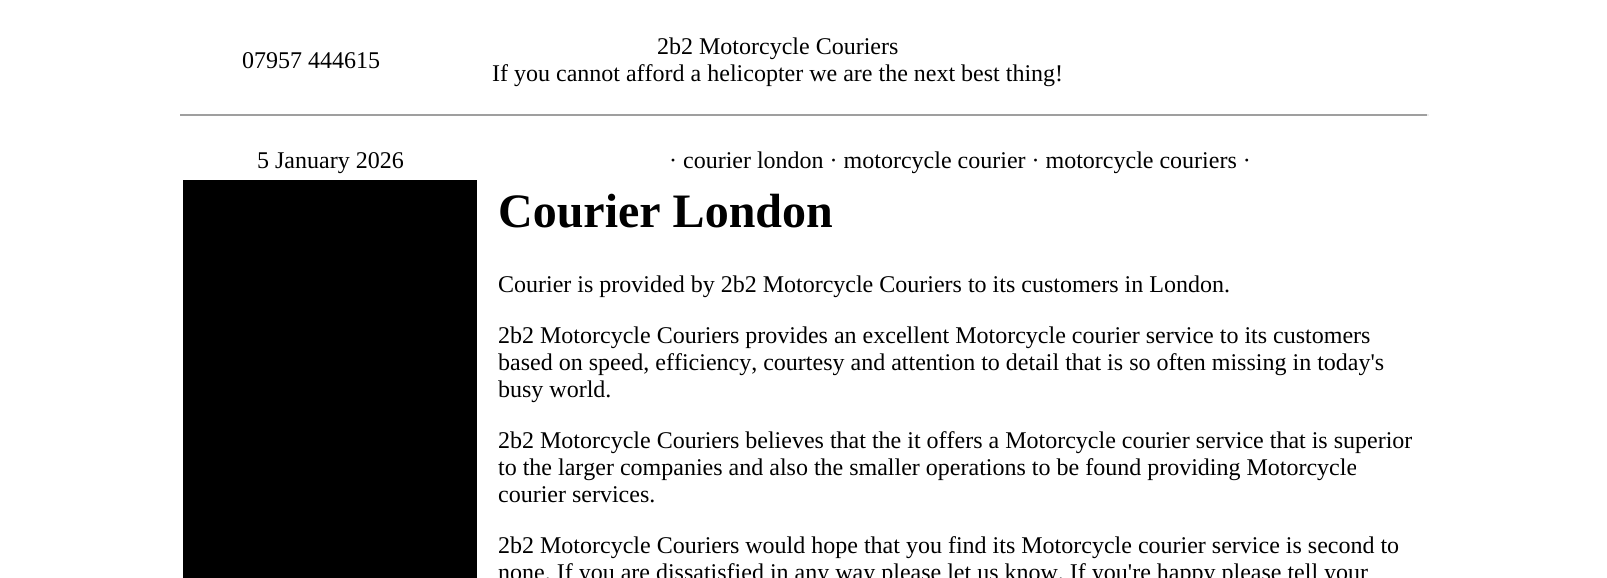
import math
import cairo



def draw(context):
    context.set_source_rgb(1, 1, 1)
    context.paint()
    context.set_source_rgb(159 / 255, 159 / 255, 159 / 255)
    context.rectangle(180, 114, 1248, 2)
    context.fill()
    context.set_source_rgb(238 / 255, 238 / 255, 238 / 255)
    context.rectangle(1427, 114, 2, 2)
    context.fill()
    context.set_source_rgb(0, 0, 0)
    context.rectangle(183, 180, 294, 398)
    context.fill()
    context.select_font_face("Liberation Serif")
    context.set_font_size(24)
    context.move_to(242, 68)
    context.show_text("07957 444615")
    context.move_to(657, 54)
    context.show_text("2b2 Motorcycle Couriers")
    context.move_to(492, 81)
    context.show_text("If you cannot afford a helicopter we are the next best thing!")
    context.move_to(257, 168)
    context.show_text("5 January 2026")
    context.move_to(669, 168)
    context.show_text("· courier london · motorcycle courier · motorcycle couriers ·")
    context.select_font_face("Liberation Serif", cairo.FontSlant.NORMAL, cairo.FontWeight.BOLD)
    context.set_font_size(48)
    context.move_to(498, 227)
    context.show_text("Courier London")
    context.select_font_face("Liberation Serif")
    context.set_font_size(24)
    context.move_to(498, 292)
    context.show_text("Courier is provided by 2b2 Motorcycle Couriers to its customers in London.")
    context.move_to(498, 343)
    context.show_text("2b2 Motorcycle Couriers provides an excellent Motorcycle courier service to its customers")
    context.move_to(498, 370)
    context.show_text("based on speed, efficiency, courtesy and attention to detail that is so often missing in today's")
    context.move_to(498, 397)
    context.show_text("busy world.")
    context.move_to(498, 448)
    context.show_text("2b2 Motorcycle Couriers believes that the it offers a Motorcycle courier service that is superior")
    context.move_to(498, 475)
    context.show_text("to the larger companies and also the smaller operations to be found providing Motorcycle")
    context.move_to(498, 502)
    context.show_text("courier services.")
    context.move_to(498, 553)
    context.show_text("2b2 Motorcycle Couriers would hope that you find its Motorcycle courier service is second to")
    context.move_to(498, 580)
    context.show_text("none. If you are dissatisfied in any way please let us know. If you're happy please tell your")


surface = cairo.ImageSurface(cairo.Format.RGB24, 1607, 578)
context = cairo.Context(surface)
options = cairo.FontOptions()
options.set_hint_metrics(cairo.HintMetrics.OFF)
options.set_hint_style(cairo.HintStyle.NONE)
context.set_font_options(options)
context.set_miter_limit(4)
draw(context)
surface.write_to_png("out.png")
